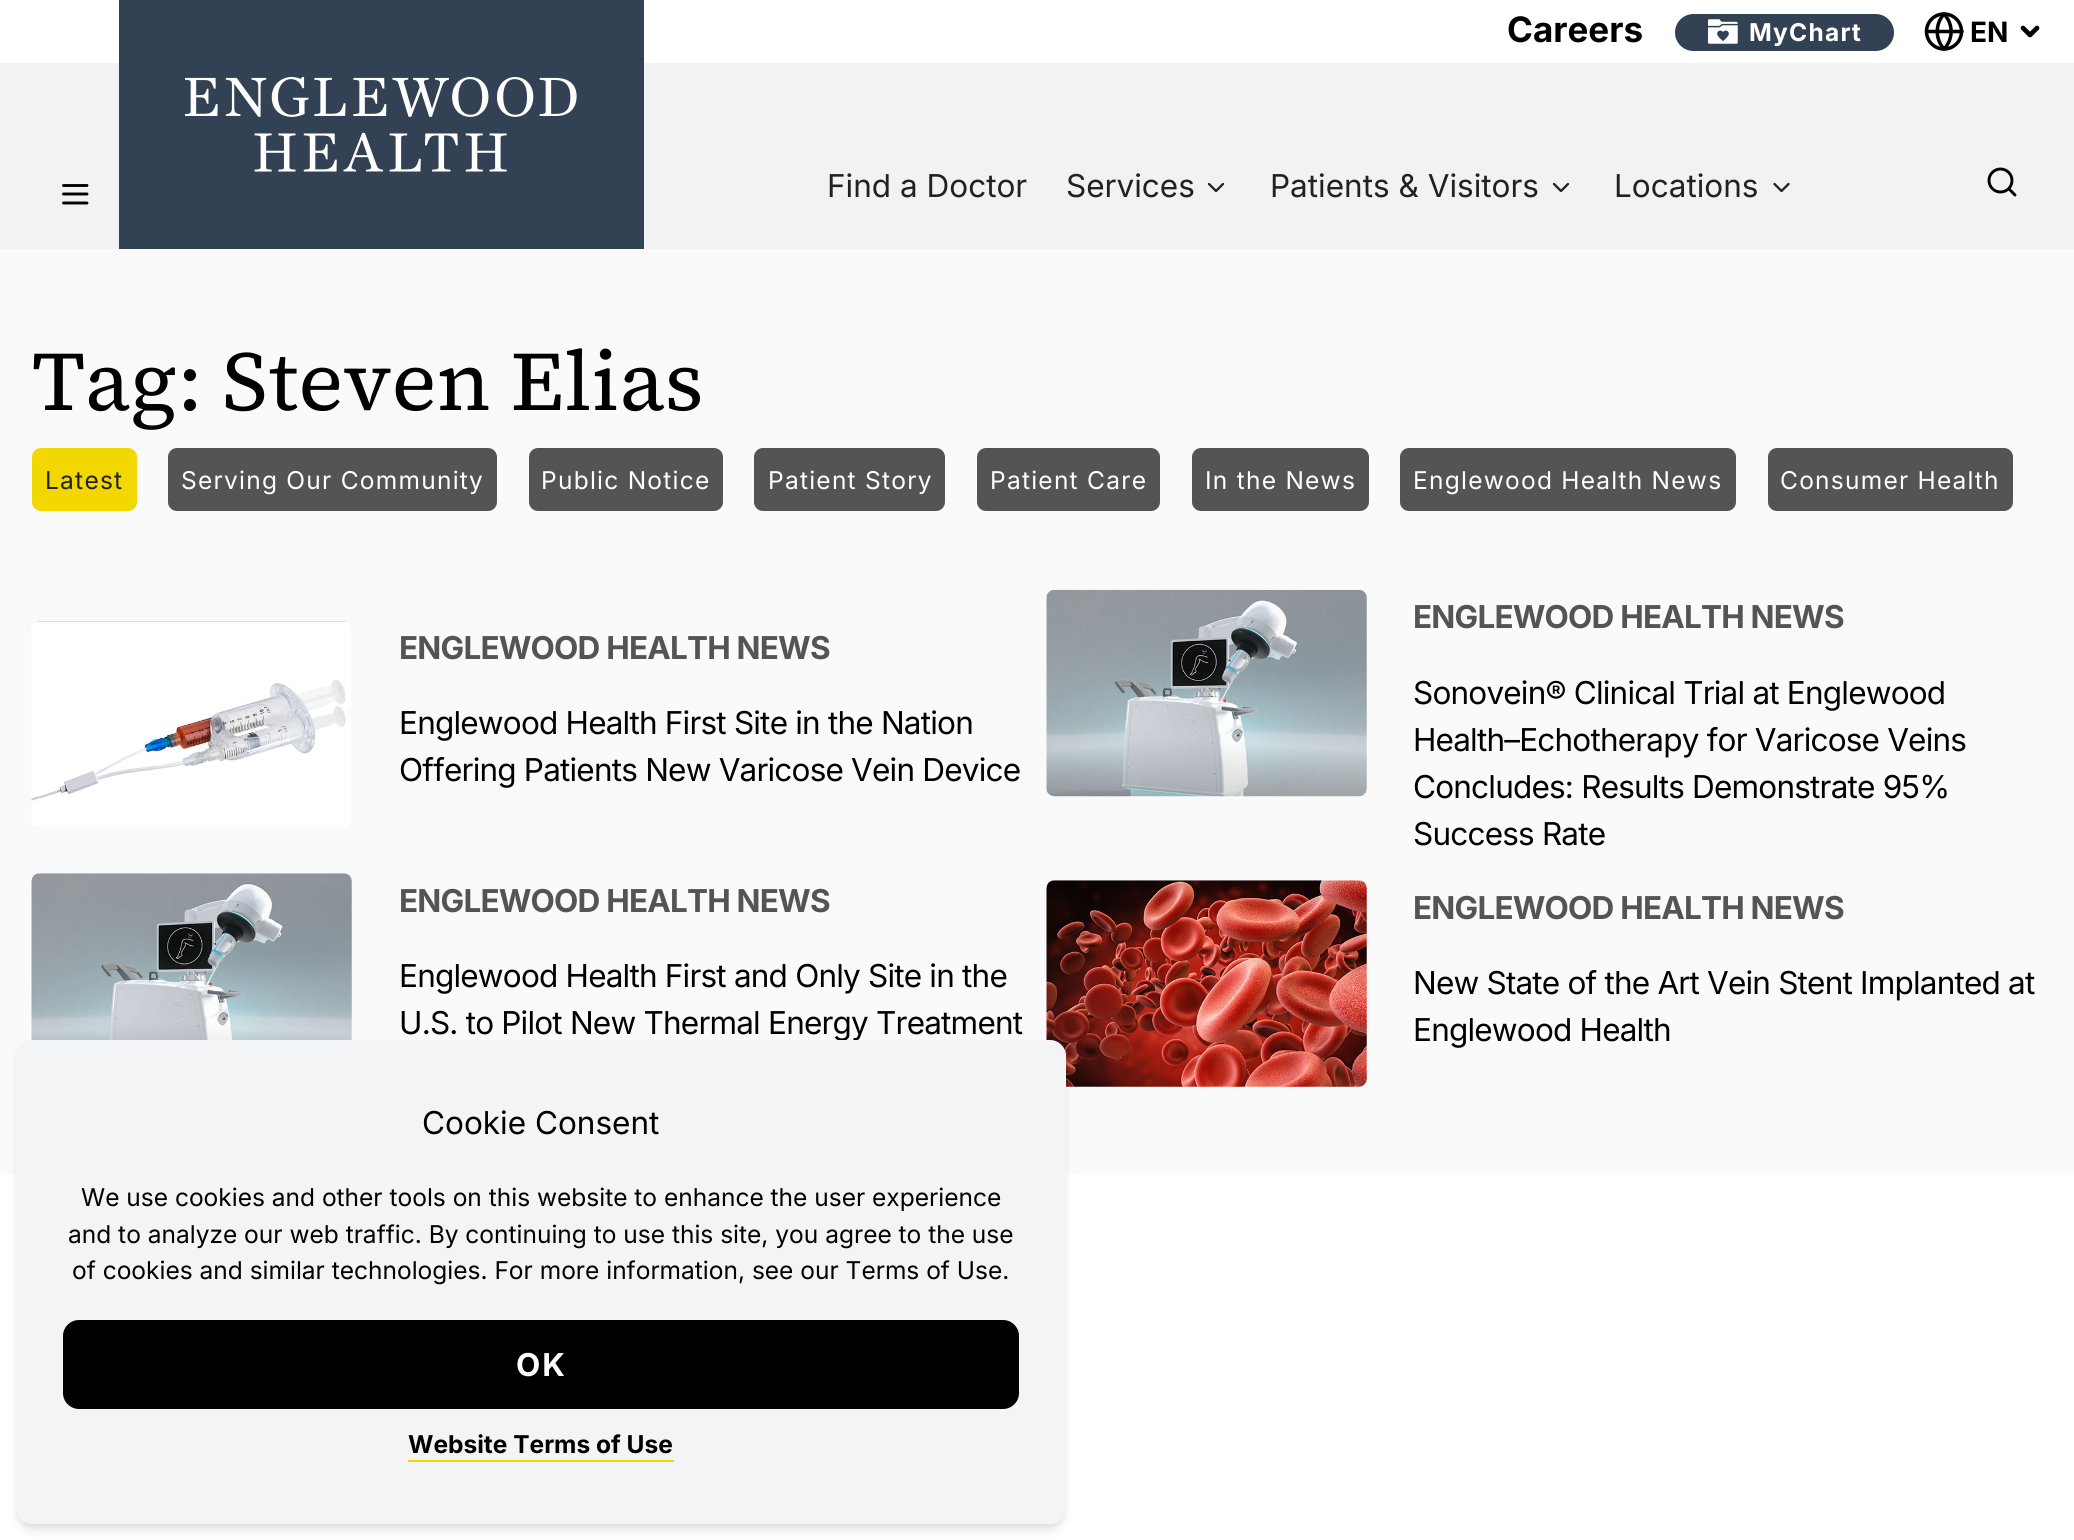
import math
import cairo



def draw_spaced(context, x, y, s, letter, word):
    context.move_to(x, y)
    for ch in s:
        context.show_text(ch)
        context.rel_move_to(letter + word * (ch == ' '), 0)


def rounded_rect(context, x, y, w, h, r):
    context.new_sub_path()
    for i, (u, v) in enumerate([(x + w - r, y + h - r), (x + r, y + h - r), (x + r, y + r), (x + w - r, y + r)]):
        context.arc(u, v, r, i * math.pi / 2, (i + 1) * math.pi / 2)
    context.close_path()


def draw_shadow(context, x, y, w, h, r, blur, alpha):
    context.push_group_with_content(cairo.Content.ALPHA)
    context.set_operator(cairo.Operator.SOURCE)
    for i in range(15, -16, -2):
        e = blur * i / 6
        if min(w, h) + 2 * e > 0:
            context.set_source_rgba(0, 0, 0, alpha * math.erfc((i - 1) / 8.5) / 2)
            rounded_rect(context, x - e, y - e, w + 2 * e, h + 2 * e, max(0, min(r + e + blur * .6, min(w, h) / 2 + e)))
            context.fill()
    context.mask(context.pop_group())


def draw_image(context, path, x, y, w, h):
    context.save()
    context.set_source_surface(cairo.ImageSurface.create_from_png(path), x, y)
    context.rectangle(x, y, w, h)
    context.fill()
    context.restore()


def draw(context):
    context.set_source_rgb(1, 1, 1)
    context.paint()
    context.set_source_rgb(242 / 255, 242 / 255, 242 / 255)
    context.rectangle(0, 63, 2074, 186)
    context.fill()
    context.set_source_rgb(51 / 255, 65 / 255, 84 / 255)
    rounded_rect(context, 1675, 14, 219, 37, 18.5)
    context.fill()
    draw_image(context, "images/1.png", 1708, 19, 30, 25)
    context.arc(1944, 31.5, 17.5, 0, 2 * math.pi)
    context.set_source_rgb(0, 0, 0)
    context.set_line_width(3.5)
    context.stroke()
    context.new_path()
    context.move_to(1927, 31.5)
    context.line_to(1962, 31.5)
    context.move_to(1944, 14)
    context.curve_to(1953.5, 24, 1953.5, 39, 1944, 49)
    context.curve_to(1935, 39, 1935, 24, 1944, 14)
    context.close_path()
    context.set_line_cap(cairo.LineCap.ROUND)
    context.set_line_join(cairo.LineJoin.ROUND)
    context.stroke()
    context.new_path()
    context.move_to(2023, 28)
    context.line_to(2030, 35)
    context.line_to(2037, 28)
    context.set_line_width(4.7)
    context.stroke()
    context.new_path()
    context.move_to(63.5, 194)
    context.line_to(87, 194)
    context.move_to(63.5, 185.5)
    context.line_to(87, 185.5)
    context.move_to(63.5, 203)
    context.line_to(87, 203)
    context.set_line_width(2.9)
    context.stroke()
    context.set_source_rgb(51 / 255, 65 / 255, 84 / 255)
    context.rectangle(119, 0, 525, 249)
    context.fill()
    draw_image(context, "images/2.png", 185, 77, 392, 95)
    context.new_path()
    context.move_to(1209, 184)
    context.line_to(1216, 191)
    context.line_to(1223, 184)
    context.set_source_rgb(33 / 255, 33 / 255, 33 / 255)
    context.set_line_width(2.3)
    context.stroke()
    context.new_path()
    context.move_to(1554, 184)
    context.line_to(1561, 191)
    context.line_to(1568, 184)
    context.stroke()
    context.new_path()
    context.move_to(1774.5, 184)
    context.line_to(1781.5, 191)
    context.line_to(1788.5, 184)
    context.stroke()
    context.arc(2000.5, 180.5, 11.5, 0, 2 * math.pi)
    context.set_source_rgb(0, 0, 0)
    context.set_line_width(2.9)
    context.set_line_cap(cairo.LineCap.BUTT)
    context.set_line_join(cairo.LineJoin.MITER)
    context.stroke()
    context.new_path()
    context.move_to(2015, 195)
    context.line_to(2009, 189)
    context.set_line_cap(cairo.LineCap.ROUND)
    context.set_line_join(cairo.LineJoin.ROUND)
    context.stroke()
    context.set_source_rgb(250 / 255, 250 / 255, 250 / 255)
    context.rectangle(0, 249, 2074, 924)
    context.fill()
    context.set_source_rgb(242 / 255, 215 / 255, 0)
    rounded_rect(context, 32, 448, 105, 63, 9)
    context.fill()
    context.set_source_rgb(84 / 255, 84 / 255, 84 / 255)
    rounded_rect(context, 168, 448, 329, 63, 9)
    context.fill()
    rounded_rect(context, 529, 448, 194, 63, 9)
    context.fill()
    rounded_rect(context, 754, 448, 191, 63, 9)
    context.fill()
    rounded_rect(context, 977, 448, 183, 63, 9)
    context.fill()
    rounded_rect(context, 1192, 448, 177, 63, 9)
    context.fill()
    rounded_rect(context, 1400, 448, 336, 63, 9)
    context.fill()
    rounded_rect(context, 1768, 448, 245, 63, 9)
    context.fill()
    draw_image(context, "images/3.png", 31, 621, 320, 206)
    draw_image(context, "images/4.png", 1046, 589, 321, 208)
    draw_image(context, "images/5.png", 31, 873, 321, 168)
    draw_image(context, "images/6.png", 1046, 880, 321, 207)
    context.set_source_rgb(0, 0, 0)
    draw_shadow(context, 19, 1047, 1043, 477, 12, 3.5, 0.1)
    draw_shadow(context, 18, 1048, 1046, 482, 14, 5, 0.1)
    context.select_font_face("Inter", cairo.FontSlant.NORMAL, cairo.FontWeight.BOLD)
    context.set_font_size(35)
    context.set_source_rgb(0, 0, 0)
    context.move_to(1507, 42)
    context.show_text("Careers")
    context.set_font_size(24.5)
    context.set_source_rgb(1, 1, 1)
    draw_spaced(context, 1749, 41, "MyChart", 1.25, 0)
    context.set_font_size(28)
    context.set_source_rgb(0, 0, 0)
    context.move_to(1970, 42)
    context.show_text("EN")
    context.select_font_face("Inter")
    context.set_font_size(31.5)
    context.set_source_rgb(33 / 255, 33 / 255, 33 / 255)
    context.move_to(827, 197)
    context.show_text("Find a Doctor")
    context.move_to(1066, 197)
    context.show_text("Services")
    context.move_to(1270, 197)
    context.show_text("Patients & Visitors")
    context.move_to(1614, 197)
    context.show_text("Locations")
    context.select_font_face("Source Serif 4")
    context.set_font_size(84)
    context.set_source_rgb(0, 0, 0)
    context.move_to(32, 410)
    context.show_text("Tag: Steven Elias")
    context.select_font_face("Inter")
    context.set_font_size(24.5)
    context.set_source_rgb(33 / 255, 33 / 255, 33 / 255)
    draw_spaced(context, 45, 489, "Latest", 1.25, 0)
    context.set_source_rgb(1, 1, 1)
    draw_spaced(context, 181, 489, "Serving Our Community", 1.25, 0)
    draw_spaced(context, 541, 489, "Public Notice", 1.25, 0)
    draw_spaced(context, 768, 489, "Patient Story", 1.25, 0)
    draw_spaced(context, 990, 489, "Patient Care", 1.25, 0)
    draw_spaced(context, 1205, 489, "In the News", 1.25, 0)
    draw_spaced(context, 1413, 489, "Englewood Health News", 1.25, 0)
    draw_spaced(context, 1780, 489, "Consumer Health", 1.25, 0)
    context.select_font_face("Inter", cairo.FontSlant.NORMAL, cairo.FontWeight.BOLD)
    context.set_font_size(31.5)
    context.set_source_rgb(84 / 255, 84 / 255, 84 / 255)
    draw_spaced(context, 399, 659, "ENGLEWOOD HEALTH NEWS", -0.8, 0)
    context.select_font_face("Inter")
    context.set_source_rgb(0, 0, 0)
    draw_spaced(context, 399, 734, "Englewood Health First Site in the Nation", -0.8, 0)
    draw_spaced(context, 399, 781, "Offering Patients New Varicose Vein Device", -0.8, 0)
    context.select_font_face("Inter", cairo.FontSlant.NORMAL, cairo.FontWeight.BOLD)
    context.set_source_rgb(84 / 255, 84 / 255, 84 / 255)
    draw_spaced(context, 1413, 628, "ENGLEWOOD HEALTH NEWS", -0.8, 0)
    context.select_font_face("Inter")
    context.set_source_rgb(0, 0, 0)
    draw_spaced(context, 1413, 704, "Sonovein® Clinical Trial at Englewood", -0.8, 0)
    draw_spaced(context, 1413, 751, "Health–Echotherapy for Varicose Veins", -0.8, 0)
    draw_spaced(context, 1413, 798, "Concludes: Results Demonstrate 95%", -0.8, 0)
    draw_spaced(context, 1413, 845, "Success Rate", -0.8, 0)
    context.select_font_face("Inter", cairo.FontSlant.NORMAL, cairo.FontWeight.BOLD)
    context.set_source_rgb(84 / 255, 84 / 255, 84 / 255)
    draw_spaced(context, 399, 912, "ENGLEWOOD HEALTH NEWS", -0.8, 0)
    context.select_font_face("Inter")
    context.set_source_rgb(0, 0, 0)
    draw_spaced(context, 399, 987, "Englewood Health First and Only Site in the", -0.8, 0)
    draw_spaced(context, 399, 1034, "U.S. to Pilot New Thermal Energy Treatment", -0.8, 0)
    context.select_font_face("Inter", cairo.FontSlant.NORMAL, cairo.FontWeight.BOLD)
    context.set_source_rgb(84 / 255, 84 / 255, 84 / 255)
    draw_spaced(context, 1413, 919, "ENGLEWOOD HEALTH NEWS", -0.8, 0)
    context.select_font_face("Inter")
    context.set_source_rgb(0, 0, 0)
    draw_spaced(context, 1413, 994, "New State of the Art Vein Stent Implanted at", -0.8, 0)
    draw_spaced(context, 1413, 1041, "Englewood Health", -0.8, 0)
    context.set_source_rgb(243 / 255, 244 / 255, 246 / 255)
    rounded_rect(context, 16, 1040, 1050, 484, 16)
    context.fill()
    context.set_source_rgb(0, 0, 0)
    context.move_to(422, 1134)
    context.show_text("Cookie Consent")
    context.set_font_size(24.5)
    context.move_to(81, 1206)
    context.show_text("We use cookies and other tools on this website to enhance the user experience")
    context.move_to(68, 1243)
    context.show_text("and to analyze our web traffic. By continuing to use this site, you agree to the use")
    context.move_to(72, 1279)
    context.show_text("of cookies and similar technologies. For more information, see our Terms of Use.")
    rounded_rect(context, 63, 1320, 956, 89, 16)
    context.fill()
    context.select_font_face("Inter", cairo.FontSlant.NORMAL, cairo.FontWeight.BOLD)
    context.set_font_size(31.5)
    context.set_source_rgb(1, 1, 1)
    draw_spaced(context, 516, 1376, "OK", 2, 0)
    context.set_font_size(24.5)
    context.set_source_rgb(0, 0, 0)
    context.move_to(408, 1453)
    context.show_text("Website Terms of Use")
    context.set_source_rgb(242 / 255, 215 / 255, 0)
    context.rectangle(408, 1460, 266, 2)
    context.fill()


surface = cairo.ImageSurface(cairo.Format.RGB24, 2074, 1540)
context = cairo.Context(surface)
options = cairo.FontOptions()
options.set_hint_metrics(cairo.HintMetrics.OFF)
options.set_hint_style(cairo.HintStyle.NONE)
context.set_font_options(options)
context.set_miter_limit(4)
draw(context)
surface.write_to_png("out.png")
